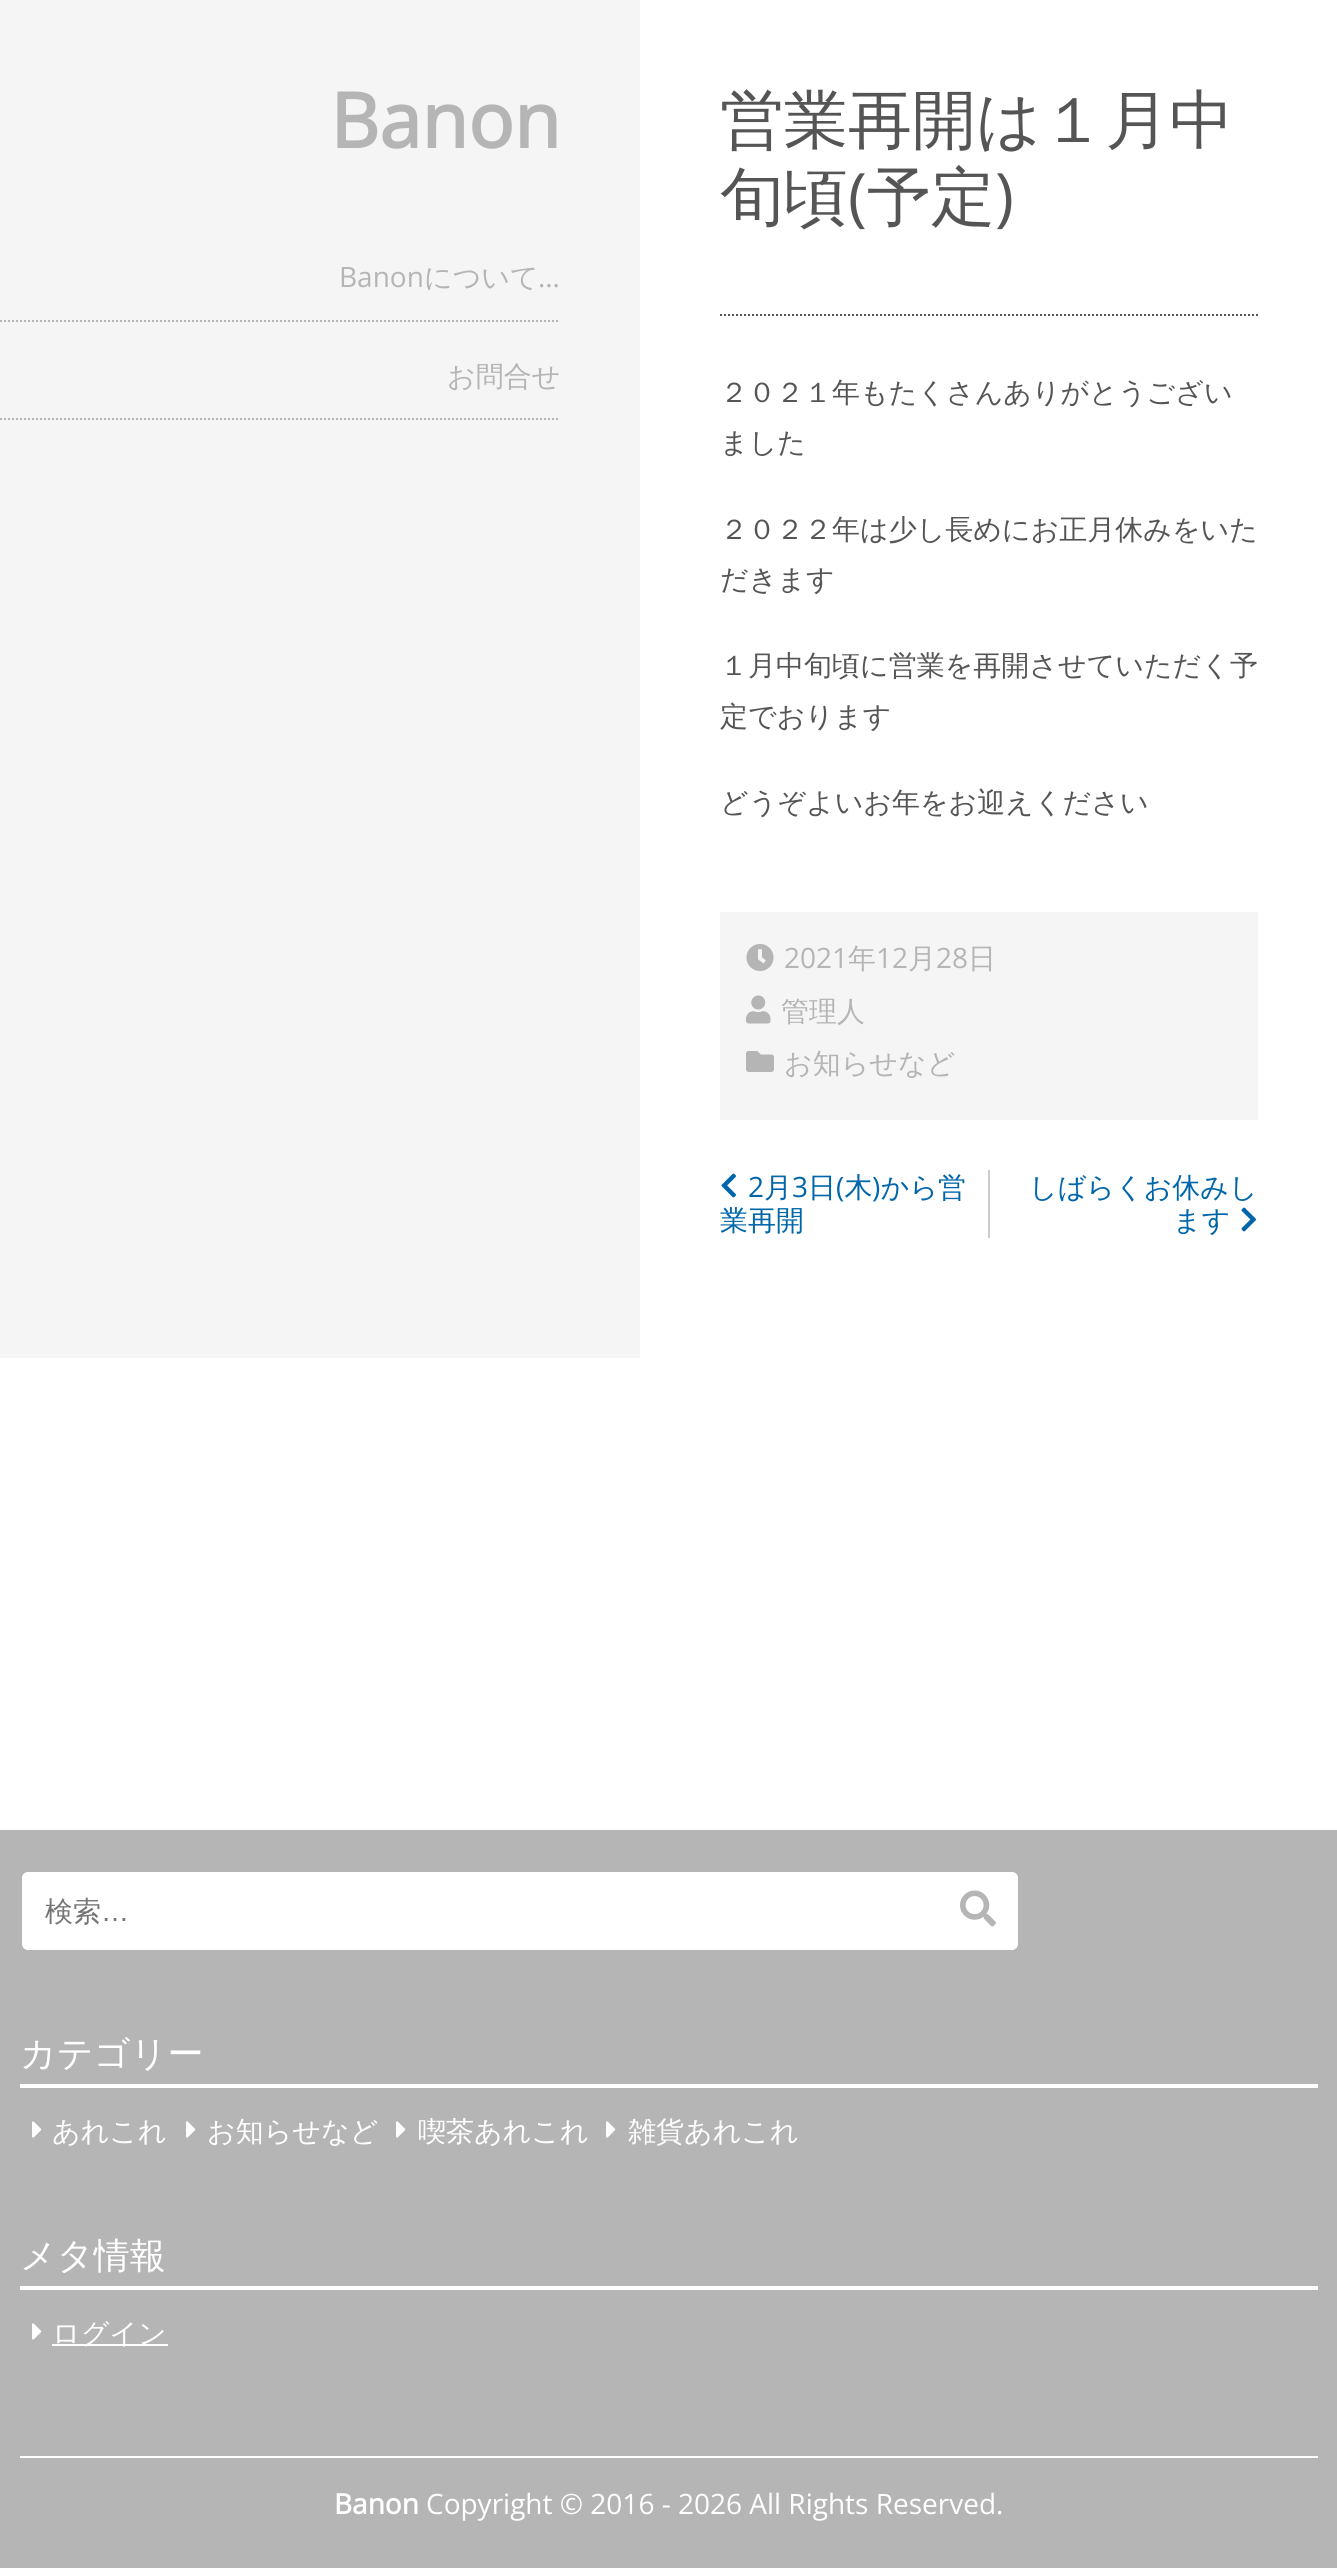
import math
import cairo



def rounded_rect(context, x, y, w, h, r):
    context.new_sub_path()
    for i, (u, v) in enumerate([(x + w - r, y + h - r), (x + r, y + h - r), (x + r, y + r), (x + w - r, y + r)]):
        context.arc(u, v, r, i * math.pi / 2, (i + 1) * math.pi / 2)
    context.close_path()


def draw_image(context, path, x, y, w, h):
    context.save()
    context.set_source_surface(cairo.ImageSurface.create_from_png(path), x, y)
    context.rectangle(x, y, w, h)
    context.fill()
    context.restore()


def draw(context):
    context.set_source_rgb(1, 1, 1)
    context.paint()
    context.set_source_rgb(245 / 255, 245 / 255, 245 / 255)
    context.rectangle(0, 0, 640, 1358)
    context.fill()
    context.new_path()
    context.move_to(0, 321)
    context.line_to(560, 321)
    context.set_source_rgb(181 / 255, 181 / 255, 181 / 255)
    context.set_dash([2, 2])
    context.stroke()
    context.new_path()
    context.move_to(0, 419)
    context.line_to(560, 419)
    context.stroke()
    context.new_path()
    context.move_to(720, 315)
    context.line_to(1258, 315)
    context.set_source_rgb(85 / 255, 85 / 255, 85 / 255)
    context.stroke()
    context.set_source_rgb(245 / 255, 245 / 255, 245 / 255)
    context.rectangle(720, 912, 538, 208)
    context.fill()
    draw_image(context, "images/1.png", 746, 944, 28, 27)
    draw_image(context, "images/2.png", 746, 995, 25, 29)
    draw_image(context, "images/3.png", 746, 1051, 28, 21)
    context.set_source_rgb(204 / 255, 204 / 255, 204 / 255)
    context.rectangle(988, 1170, 2, 68)
    context.fill()
    draw_image(context, "images/4.png", 721, 1173, 15, 25)
    draw_image(context, "images/5.png", 1241, 1207, 15, 25)
    context.set_source_rgb(181 / 255, 181 / 255, 181 / 255)
    context.rectangle(0, 1830, 1337, 738)
    context.fill()
    context.set_source_rgb(1, 1, 1)
    rounded_rect(context, 21, 1871, 998, 80, 7)
    context.fill_preserve()
    context.set_source_rgb(181 / 255, 181 / 255, 181 / 255)
    context.set_dash([])
    context.stroke()
    draw_image(context, "images/6.png", 960, 1890, 36, 37)
    context.set_source_rgb(1, 1, 1)
    context.rectangle(20, 2084, 1298, 4)
    context.fill()
    draw_image(context, "images/7.png", 32, 2121, 10, 17)
    draw_image(context, "images/7.png", 186, 2121, 10, 17)
    draw_image(context, "images/7.png", 396, 2121, 10, 17)
    draw_image(context, "images/7.png", 606, 2121, 10, 17)
    context.rectangle(20, 2286, 1298, 4)
    context.fill()
    draw_image(context, "images/7.png", 32, 2323, 10, 17)
    context.rectangle(52, 2344, 116, 2)
    context.fill()
    context.rectangle(20, 2456, 1298, 2)
    context.fill()
    context.select_font_face("Open Sans", cairo.FontSlant.NORMAL, cairo.FontWeight.BOLD)
    context.set_font_size(76)
    context.set_source_rgb(181 / 255, 181 / 255, 181 / 255)
    context.move_to(330, 148)
    context.show_text("Banon")
    context.select_font_face("Open Sans")
    context.set_font_size(28)
    context.move_to(339, 287)
    context.show_text("Banon")
    context.select_font_face("WenQuanYi Zen Hei Medium")
    context.move_to(424, 287)
    context.show_text("について")
    context.select_font_face("Open Sans")
    context.move_to(538, 287)
    context.show_text("…")
    context.select_font_face("WenQuanYi Zen Hei Medium")
    context.move_to(447, 386)
    context.show_text("お問合せ")
    context.set_font_size(64)
    context.set_source_rgb(85 / 255, 85 / 255, 85 / 255)
    context.move_to(720, 142)
    context.show_text("営業再開は１月中")
    context.move_to(720, 219)
    context.show_text("旬頃")
    context.select_font_face("Open Sans")
    context.move_to(848, 219)
    context.show_text("(")
    context.select_font_face("WenQuanYi Zen Hei Medium")
    context.move_to(867, 219)
    context.show_text("予定")
    context.select_font_face("Open Sans")
    context.move_to(995, 219)
    context.show_text(")")
    context.select_font_face("WenQuanYi Zen Hei Medium")
    context.set_font_size(28)
    context.move_to(720, 402)
    context.show_text("２０２１年もたくさんありがとうござい")
    context.move_to(720, 452)
    context.show_text("ました")
    context.move_to(720, 539)
    context.show_text("２０２２年は少し長めにお正月休みをいた")
    context.move_to(720, 589)
    context.show_text("だきます")
    context.move_to(720, 675)
    context.show_text("１月中旬頃に営業を再開させていただく予")
    context.move_to(720, 726)
    context.show_text("定でおります")
    context.move_to(720, 812)
    context.show_text("どうぞよいお年をお迎えください")
    context.select_font_face("Open Sans")
    context.set_source_rgb(181 / 255, 181 / 255, 181 / 255)
    context.move_to(784, 968)
    context.show_text("2021")
    context.select_font_face("WenQuanYi Zen Hei Medium")
    context.move_to(848, 968)
    context.show_text("年")
    context.select_font_face("Open Sans")
    context.move_to(876, 968)
    context.show_text("12")
    context.select_font_face("WenQuanYi Zen Hei Medium")
    context.move_to(908, 968)
    context.show_text("月")
    context.select_font_face("Open Sans")
    context.move_to(936, 968)
    context.show_text("28")
    context.select_font_face("WenQuanYi Zen Hei Medium")
    context.move_to(968, 968)
    context.show_text("日")
    context.move_to(781, 1021)
    context.show_text("管理人")
    context.move_to(784, 1073)
    context.show_text("お知らせなど")
    context.select_font_face("Open Sans")
    context.set_source_rgb(0, 102 / 255, 170 / 255)
    context.move_to(748, 1197)
    context.show_text("2")
    context.select_font_face("WenQuanYi Zen Hei Medium")
    context.move_to(764, 1197)
    context.show_text("月")
    context.select_font_face("Open Sans")
    context.move_to(792, 1197)
    context.show_text("3")
    context.select_font_face("WenQuanYi Zen Hei Medium")
    context.move_to(808, 1197)
    context.show_text("日 木 から営")
    context.select_font_face("Open Sans")
    context.move_to(836, 1197)
    context.show_text("(")
    context.move_to(872, 1197)
    context.show_text(")")
    context.select_font_face("WenQuanYi Zen Hei Medium")
    context.move_to(720, 1230)
    context.show_text("業再開")
    context.move_to(1029, 1197)
    context.show_text("しばらくお休みし")
    context.move_to(1173, 1230)
    context.show_text("ます")
    context.set_source_rgb(117 / 255, 117 / 255, 117 / 255)
    context.move_to(45, 1921)
    context.show_text("検索")
    context.select_font_face("Liberation Sans")
    context.move_to(101, 1921)
    context.show_text("…")
    context.select_font_face("WenQuanYi Zen Hei Medium")
    context.set_font_size(36)
    context.set_source_rgb(1, 1, 1)
    context.move_to(20, 2066)
    context.show_text("カテゴリー")
    context.set_font_size(28)
    context.move_to(52, 2141)
    context.show_text("あれこれ")
    context.move_to(207, 2141)
    context.show_text("お知らせなど")
    context.move_to(418, 2141)
    context.show_text("喫茶あれこれ")
    context.move_to(628, 2141)
    context.show_text("雑貨あれこれ")
    context.set_font_size(36)
    context.move_to(20, 2268)
    context.show_text("メタ情報")
    context.set_font_size(28)
    context.move_to(52, 2343)
    context.show_text("ログイン")
    context.select_font_face("Open Sans", cairo.FontSlant.NORMAL, cairo.FontWeight.BOLD)
    context.move_to(334, 2514)
    context.show_text("Banon")
    context.select_font_face("Open Sans")
    context.move_to(426, 2514)
    context.show_text("Copyright © 2016 - 2026 All Rights Reserved.")


surface = cairo.ImageSurface(cairo.Format.RGB24, 1337, 2568)
context = cairo.Context(surface)
options = cairo.FontOptions()
options.set_hint_metrics(cairo.HintMetrics.OFF)
options.set_hint_style(cairo.HintStyle.NONE)
context.set_font_options(options)
context.set_miter_limit(4)
draw(context)
surface.write_to_png("out.png")
